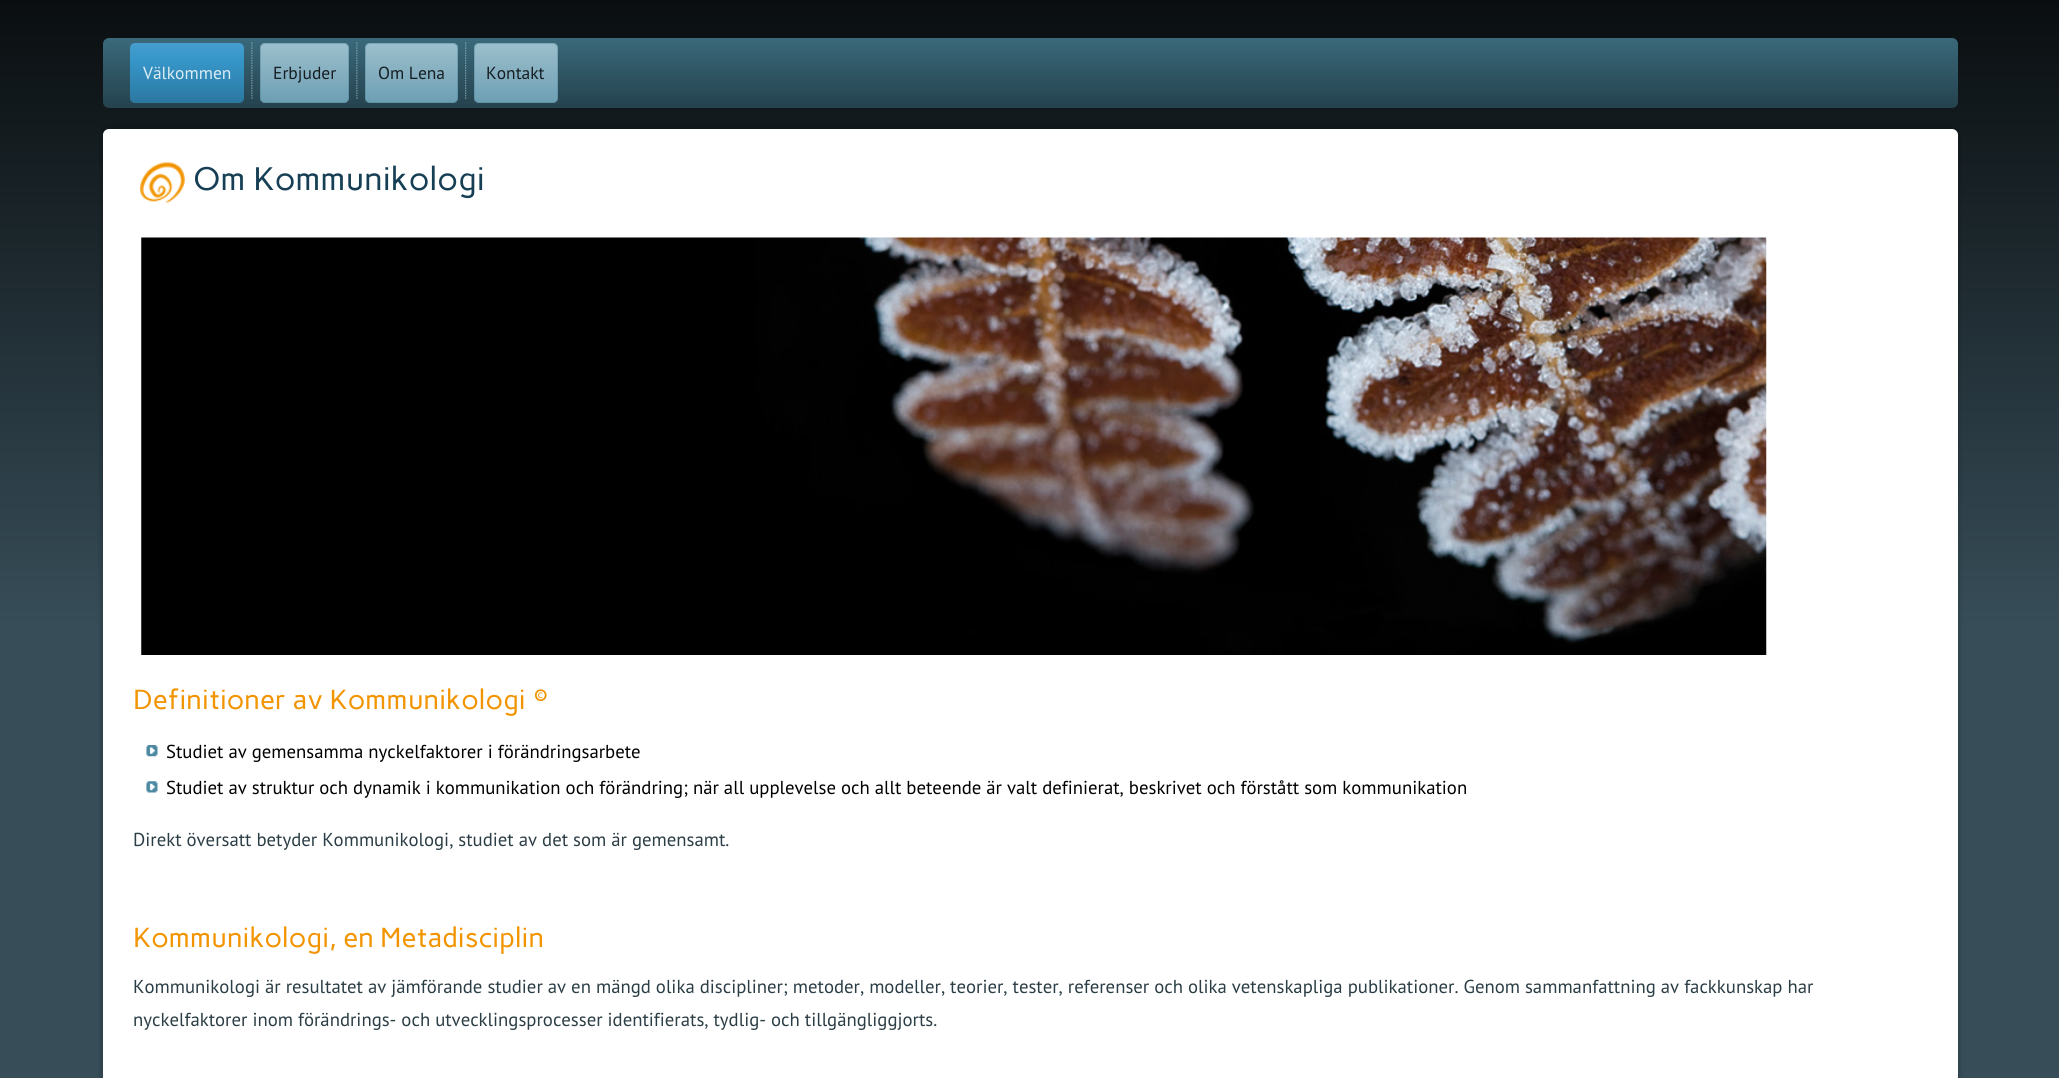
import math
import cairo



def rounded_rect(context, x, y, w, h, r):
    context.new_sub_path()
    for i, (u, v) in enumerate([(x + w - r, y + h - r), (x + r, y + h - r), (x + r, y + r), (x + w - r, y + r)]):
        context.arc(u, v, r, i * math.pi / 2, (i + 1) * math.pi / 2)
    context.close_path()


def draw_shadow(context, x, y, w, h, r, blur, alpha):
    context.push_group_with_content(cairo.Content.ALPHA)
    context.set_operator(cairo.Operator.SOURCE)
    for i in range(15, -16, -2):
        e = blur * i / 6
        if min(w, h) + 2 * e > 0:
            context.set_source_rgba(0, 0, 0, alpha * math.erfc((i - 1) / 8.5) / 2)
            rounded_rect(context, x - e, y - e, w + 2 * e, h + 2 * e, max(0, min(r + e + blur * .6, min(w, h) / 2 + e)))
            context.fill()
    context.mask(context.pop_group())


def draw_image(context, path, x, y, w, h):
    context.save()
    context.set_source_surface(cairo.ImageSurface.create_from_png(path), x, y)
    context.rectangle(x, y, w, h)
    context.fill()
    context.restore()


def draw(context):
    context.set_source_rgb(1, 1, 1)
    context.paint()
    gradient = cairo.LinearGradient(1030, 0, 1030, 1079)
    gradient.add_color_stop_rgba(0, 10 / 255, 14 / 255, 16 / 255, 1)
    gradient.add_color_stop_rgba(0.58, 55 / 255, 77 / 255, 88 / 255, 1)
    context.set_source(gradient)
    context.rectangle(0, 0, 2059, 1078)
    context.fill()
    gradient = cairo.LinearGradient(1030, 37, 1030, 108)
    gradient.add_color_stop_rgba(0, 64 / 255, 115 / 255, 135 / 255, 0.9)
    gradient.add_color_stop_rgba(1, 39 / 255, 71 / 255, 83 / 255, 0.9)
    context.set_source(gradient)
    rounded_rect(context, 103, 38, 1855, 70, 6)
    context.fill()
    gradient = cairo.LinearGradient(187, 42, 187, 103)
    gradient.add_color_stop_rgba(0, 70 / 255, 158 / 255, 206 / 255, 1)
    gradient.add_color_stop_rgba(0.29, 54 / 255, 150 / 255, 201 / 255, 1)
    gradient.add_color_stop_rgba(1, 43 / 255, 120 / 255, 161 / 255, 1)
    context.set_source(gradient)
    rounded_rect(context, 130, 43, 114, 60, 5)
    context.fill()
    draw_image(context, "images/1.png", 251, 42, 2, 57)
    gradient = cairo.LinearGradient(304, 43, 304, 103)
    gradient.add_color_stop_rgba(0, 168 / 255, 201 / 255, 214 / 255, 0.9)
    gradient.add_color_stop_rgba(1, 116 / 255, 169 / 255, 190 / 255, 0.9)
    context.set_source(gradient)
    rounded_rect(context, 260, 43, 89, 60, 5)
    context.fill()
    rounded_rect(context, 260.5, 43.5, 88, 59, 4.5)
    context.set_source_rgba(70 / 255, 127 / 255, 149 / 255, 0.4)
    context.set_line_width(1)
    context.stroke()
    draw_image(context, "images/1.png", 356, 42, 2, 57)
    gradient = cairo.LinearGradient(411, 43, 411, 103)
    gradient.add_color_stop_rgba(0, 168 / 255, 201 / 255, 214 / 255, 0.9)
    gradient.add_color_stop_rgba(1, 116 / 255, 169 / 255, 190 / 255, 0.9)
    context.set_source(gradient)
    rounded_rect(context, 365, 43, 93, 60, 5)
    context.fill()
    rounded_rect(context, 365.5, 43.5, 92, 59, 4.5)
    context.set_source_rgba(70 / 255, 127 / 255, 149 / 255, 0.4)
    context.stroke()
    draw_image(context, "images/2.png", 465, 42, 2, 57)
    gradient = cairo.LinearGradient(516, 43, 516, 103)
    gradient.add_color_stop_rgba(0, 168 / 255, 201 / 255, 214 / 255, 0.9)
    gradient.add_color_stop_rgba(1, 116 / 255, 169 / 255, 190 / 255, 0.9)
    context.set_source(gradient)
    rounded_rect(context, 474, 43, 84, 60, 5)
    context.fill()
    rounded_rect(context, 474.5, 43.5, 83, 59, 4.5)
    context.set_source_rgba(70 / 255, 127 / 255, 149 / 255, 0.4)
    context.stroke()
    context.set_source_rgb(0, 0, 0)
    draw_shadow(context, 100, 126, 1860, 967, 9, 2, 0.15)
    context.set_source_rgb(1, 1, 1)
    rounded_rect(context, 103, 129, 1855, 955, 6)
    context.fill()
    draw_image(context, "images/3.png", 140, 162, 45, 41)
    draw_image(context, "images/4.png", 141, 237, 1626, 418)
    draw_image(context, "images/5.png", 146, 745, 12, 12)
    draw_image(context, "images/6.png", 146, 781, 12, 12)
    context.select_font_face("PT Sans")
    context.set_font_size(17.5)
    context.set_source_rgb(219 / 255, 236 / 255, 245 / 255)
    context.move_to(143, 79)
    context.show_text("Välkommen")
    context.set_source_rgb(22 / 255, 30 / 255, 35 / 255)
    context.move_to(273, 79)
    context.show_text("Erbjuder")
    context.move_to(378, 79)
    context.show_text("Om Lena")
    context.move_to(486, 79)
    context.show_text("Kontakt")
    context.select_font_face("Carme")
    context.set_font_size(32.5)
    context.set_source_rgb(22 / 255, 63 / 255, 85 / 255)
    context.move_to(193, 190)
    context.show_text("Om Kommunikologi")
    context.set_font_size(27.5)
    context.set_source_rgb(242 / 255, 148 / 255, 0)
    context.move_to(133, 709)
    context.show_text("Definitioner av Kommunikologi ©")
    context.select_font_face("PT Sans")
    context.set_font_size(18.75)
    context.set_source_rgb(0, 0, 0)
    context.move_to(166, 758)
    context.show_text("Studiet av gemensamma nyckelfaktorer i förändringsarbete")
    context.move_to(166, 794)
    context.show_text("Studiet av struktur och dynamik i kommunikation och förändring; när all upplevelse och allt beteende är valt definierat, beskrivet och förstått som kommunikation")
    context.set_source_rgb(43 / 255, 61 / 255, 69 / 255)
    context.move_to(133, 846)
    context.show_text("Direkt översatt betyder Kommunikologi, studiet av det som är gemensamt.")
    context.select_font_face("Carme")
    context.set_font_size(27.5)
    context.set_source_rgb(242 / 255, 148 / 255, 0)
    context.move_to(133, 947)
    context.show_text("Kommunikologi, en Metadisciplin")
    context.select_font_face("PT Sans")
    context.set_font_size(18.75)
    context.set_source_rgb(43 / 255, 61 / 255, 69 / 255)
    context.move_to(133, 993)
    context.show_text("Kommunikologi är resultatet av jämförande studier av en mängd olika discipliner; metoder, modeller, teorier, tester, referenser och olika vetenskapliga publikationer. Genom sammanfattning av fackkunskap har")
    context.move_to(133, 1026)
    context.show_text("nyckelfaktorer inom förändrings- och utvecklingsprocesser identifierats, tydlig- och tillgängliggjorts.")


surface = cairo.ImageSurface(cairo.Format.RGB24, 2059, 1078)
context = cairo.Context(surface)
options = cairo.FontOptions()
options.set_hint_metrics(cairo.HintMetrics.OFF)
options.set_hint_style(cairo.HintStyle.NONE)
context.set_font_options(options)
context.set_miter_limit(4)
draw(context)
surface.write_to_png("out.png")
